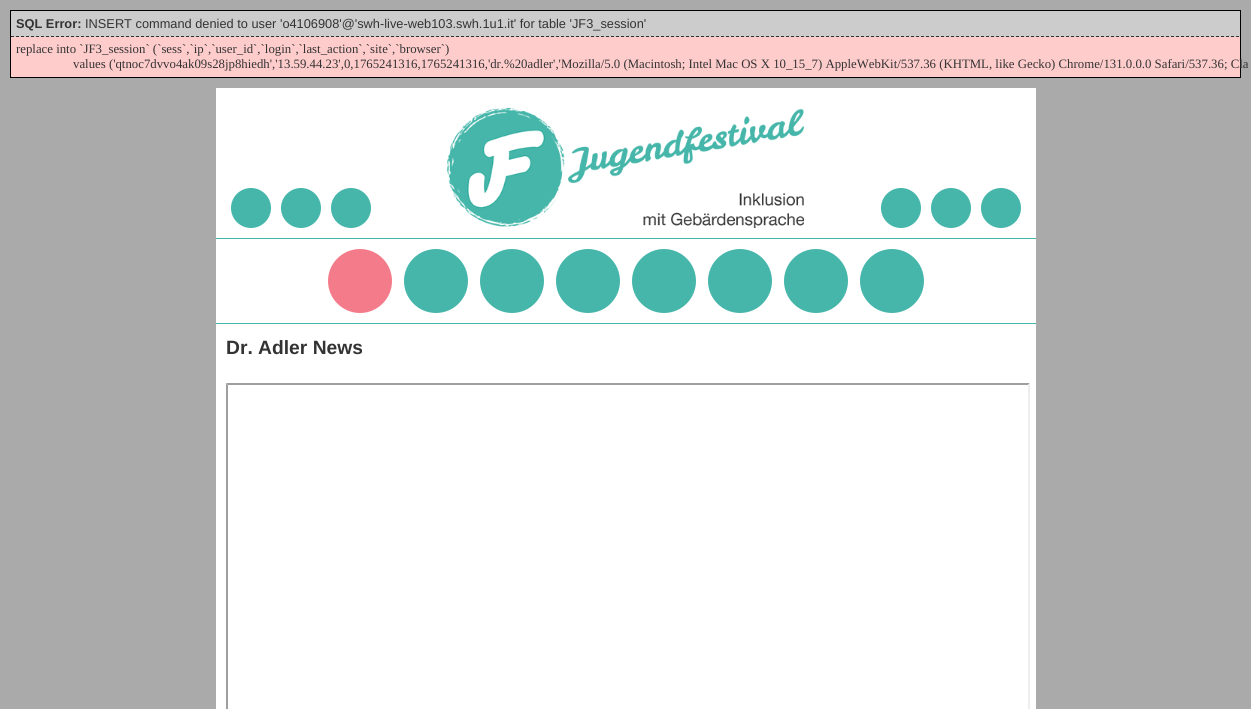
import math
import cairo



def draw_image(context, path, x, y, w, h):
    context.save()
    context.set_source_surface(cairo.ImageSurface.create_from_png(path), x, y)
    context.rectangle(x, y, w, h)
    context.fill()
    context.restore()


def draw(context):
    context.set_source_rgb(170 / 255, 170 / 255, 170 / 255)
    context.paint()
    context.set_source_rgb(1, 204 / 255, 204 / 255)
    context.rectangle(11, 37, 1229, 40)
    context.fill()
    context.rectangle(10.5, 10.5, 1230, 67)
    context.set_source_rgb(0, 0, 0)
    context.set_line_width(1)
    context.stroke()
    context.set_source_rgb(204 / 255, 204 / 255, 204 / 255)
    context.rectangle(11, 11, 1229, 26)
    context.fill()
    context.new_path()
    context.move_to(11, 36.5)
    context.line_to(1240, 36.5)
    context.set_source_rgb(51 / 255, 51 / 255, 51 / 255)
    context.set_dash([3, 2])
    context.stroke()
    context.set_source_rgb(1, 1, 1)
    context.rectangle(216, 88, 820, 621)
    context.fill()
    context.set_source_rgb(70 / 255, 182 / 255, 170 / 255)
    context.rectangle(216, 238, 820, 1)
    context.fill()
    context.arc(251, 208, 20, 0, 2 * math.pi)
    context.fill()
    context.arc(301, 208, 20, 0, 2 * math.pi)
    context.fill()
    context.arc(351, 208, 20, 0, 2 * math.pi)
    context.fill()
    draw_image(context, "images/1.png", 447, 108, 357, 120)
    context.arc(901, 208, 20, 0, 2 * math.pi)
    context.fill()
    context.arc(951, 208, 20, 0, 2 * math.pi)
    context.fill()
    context.arc(1001, 208, 20, 0, 2 * math.pi)
    context.fill()
    context.rectangle(216, 323, 820, 1)
    context.fill()
    context.set_source_rgb(244 / 255, 124 / 255, 138 / 255)
    context.arc(360, 281, 32, 0, 2 * math.pi)
    context.fill()
    context.set_source_rgb(70 / 255, 182 / 255, 170 / 255)
    context.arc(436, 281, 32, 0, 2 * math.pi)
    context.fill()
    context.arc(512, 281, 32, 0, 2 * math.pi)
    context.fill()
    context.arc(588, 281, 32, 0, 2 * math.pi)
    context.fill()
    context.arc(664, 281, 32, 0, 2 * math.pi)
    context.fill()
    context.arc(740, 281, 32, 0, 2 * math.pi)
    context.fill()
    context.arc(816, 281, 32, 0, 2 * math.pi)
    context.fill()
    context.arc(892, 281, 32, 0, 2 * math.pi)
    context.fill()
    context.set_source_rgb(159 / 255, 159 / 255, 159 / 255)
    context.new_path()
    context.move_to(226, 383)
    context.line_to(1030, 383)
    context.line_to(1028, 385)
    context.line_to(228, 385)
    context.close_path()
    context.fill()
    context.new_path()
    context.move_to(226, 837)
    context.line_to(226, 383)
    context.line_to(228, 385)
    context.line_to(228, 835)
    context.close_path()
    context.fill()
    context.set_source_rgb(238 / 255, 238 / 255, 238 / 255)
    context.new_path()
    context.move_to(1030, 383)
    context.line_to(1030, 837)
    context.line_to(1028, 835)
    context.line_to(1028, 385)
    context.close_path()
    context.fill()
    context.select_font_face("Liberation Sans", cairo.FontSlant.NORMAL, cairo.FontWeight.BOLD)
    context.set_font_size(12.8)
    context.set_source_rgb(51 / 255, 51 / 255, 51 / 255)
    context.move_to(16, 28)
    context.show_text("SQL Error:")
    context.select_font_face("Liberation Sans")
    context.move_to(85, 28)
    context.show_text("INSERT command denied to user 'o4106908'@'swh-live-web103.swh.1u1.it' for table 'JF3_session'")
    context.select_font_face("Liberation Serif")
    context.move_to(16, 53)
    context.show_text("replace into `JF3_session` (`sess`,`ip`,`user_id`,`login`,`last_action`,`site`,`browser`)")
    context.move_to(73, 68)
    context.show_text("values ('qtnoc7dvvo4ak09s28jp8hiedh','13.59.44.23',0,1765241316,1765241316,'dr.%20adler','Mozilla/5.0 (Macintosh; Intel Mac OS X 10_15_7) AppleWebKit/537.36 (KHTML, like Gecko) Chrome/131.0.0.0 Safari/537.36; Cla")
    context.select_font_face("Liberation Sans", cairo.FontSlant.NORMAL, cairo.FontWeight.BOLD)
    context.set_font_size(19.25)
    context.move_to(226, 354)
    context.show_text("Dr. Adler News")


surface = cairo.ImageSurface(cairo.Format.RGB24, 1251, 709)
context = cairo.Context(surface)
options = cairo.FontOptions()
options.set_hint_metrics(cairo.HintMetrics.OFF)
options.set_hint_style(cairo.HintStyle.NONE)
context.set_font_options(options)
context.set_miter_limit(4)
draw(context)
surface.write_to_png("out.png")
